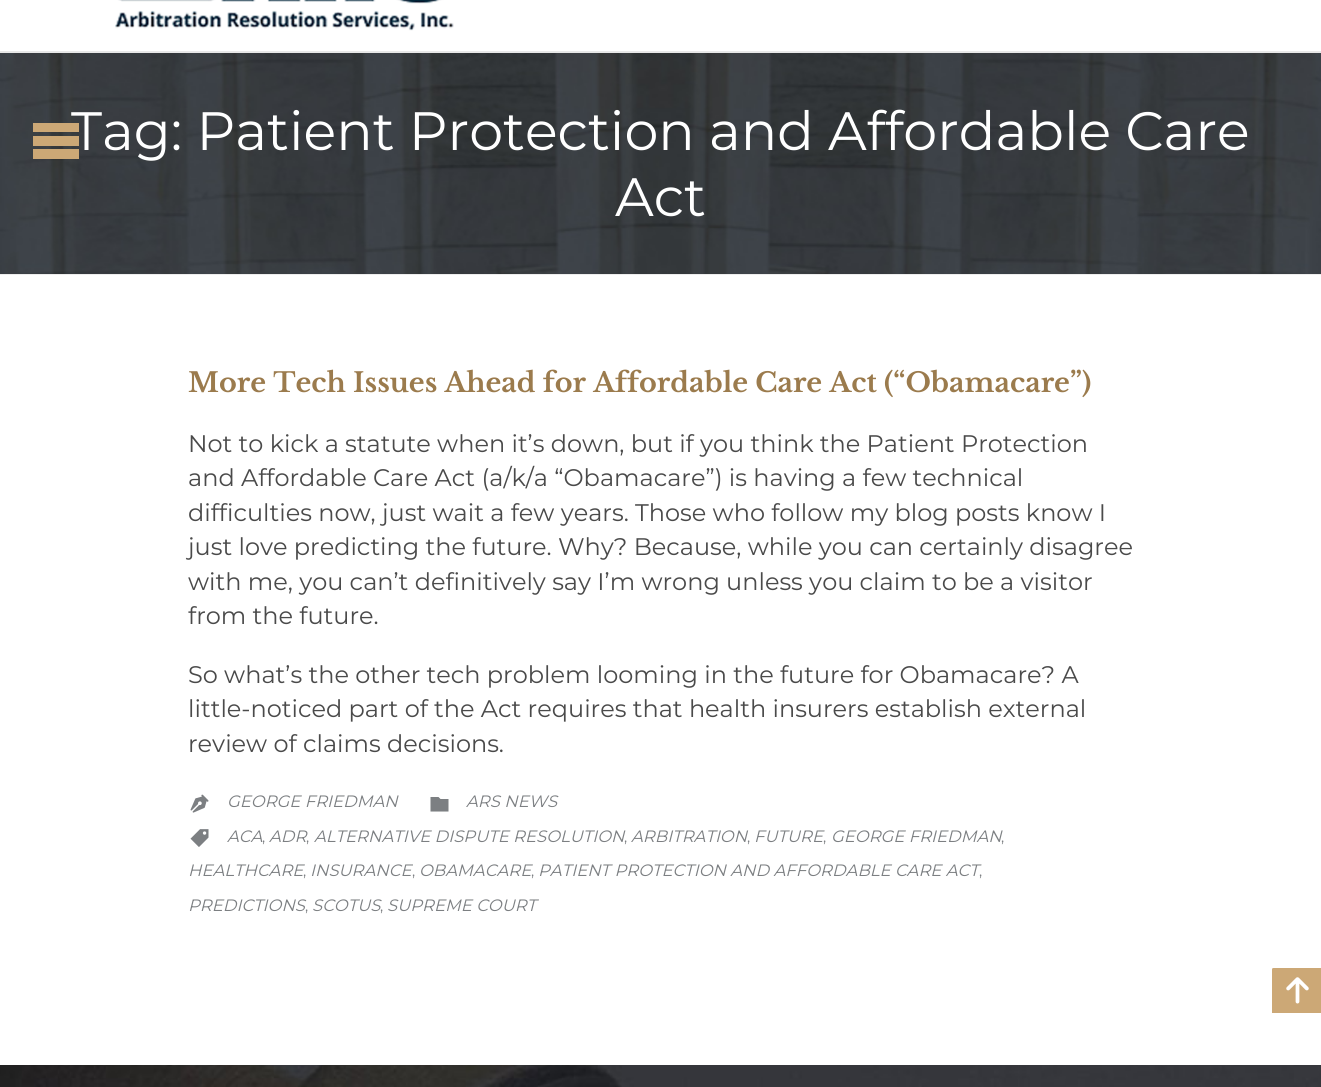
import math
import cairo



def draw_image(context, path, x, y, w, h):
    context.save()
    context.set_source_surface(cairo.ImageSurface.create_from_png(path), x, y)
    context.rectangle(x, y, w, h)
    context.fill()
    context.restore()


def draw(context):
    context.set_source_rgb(237 / 255, 237 / 255, 237 / 255)
    context.paint()
    context.set_source_rgb(1, 1, 1)
    context.rectangle(0, 0, 1321, 51)
    context.fill()
    context.set_source_rgb(232 / 255, 232 / 255, 232 / 255)
    context.rectangle(0, 51, 1321, 2)
    context.fill()
    draw_image(context, "images/1.png", 115, 0, 339, 31)
    draw_image(context, "images/2.png", 0, 53, 1321, 221)
    context.set_source_rgb(1, 1, 1)
    context.rectangle(0, 275, 1321, 790)
    context.fill()
    draw_image(context, "images/3.png", 190, 794, 19, 19)
    context.set_source_rgb(124 / 255, 127 / 255, 130 / 255)
    context.new_path()
    context.move_to(438.5, 797)
    context.line_to(440.5, 799)
    context.line_to(448.5, 799)
    context.line_to(448.5, 811.5)
    context.line_to(430.5, 811.5)
    context.line_to(430.5, 797)
    context.close_path()
    context.fill()
    draw_image(context, "images/4.png", 190, 829, 19, 18)
    draw_image(context, "images/5.png", 0, 1065, 1321, 22)
    context.set_source_rgb(204 / 255, 168 / 255, 118 / 255)
    context.new_path()
    context.move_to(1273.5, 968)
    context.line_to(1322, 968)
    context.line_to(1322, 1013)
    context.line_to(1272, 1013)
    context.line_to(1272, 969.5)
    context.curve_to(1272, 968.5, 1272.5, 968, 1273.5, 968)
    context.close_path()
    context.fill()
    draw_image(context, "images/6.png", 1286, 977, 23, 27)
    context.select_font_face("Montserrat")
    context.set_font_size(54)
    context.set_source_rgb(1, 1, 1)
    context.move_to(71, 150)
    context.show_text("Tag: Patient Protection and Affordable Care")
    context.set_source_rgb(204 / 255, 168 / 255, 118 / 255)
    context.new_path()
    context.move_to(33, 123)
    context.line_to(79, 123)
    context.line_to(79, 132)
    context.line_to(33, 132)
    context.close_path()
    context.move_to(33, 136)
    context.line_to(79, 136)
    context.line_to(79, 146)
    context.line_to(33, 146)
    context.close_path()
    context.move_to(33, 149)
    context.line_to(79, 149)
    context.line_to(79, 159)
    context.line_to(33, 159)
    context.close_path()
    context.fill()
    context.set_source_rgb(1, 1, 1)
    context.move_to(615, 216)
    context.show_text("Act")
    context.select_font_face("Libre Baskerville", cairo.FontSlant.NORMAL, cairo.FontWeight.BOLD)
    context.set_font_size(27)
    context.set_source_rgb(155 / 255, 123 / 255, 77 / 255)
    context.move_to(188, 392)
    context.show_text("More Tech Issues Ahead for Affordable Care Act (“Obamacare”)")
    context.select_font_face("Montserrat")
    context.set_font_size(24)
    context.set_source_rgb(74 / 255, 74 / 255, 74 / 255)
    context.move_to(188, 452)
    context.show_text("Not to kick a statute when it’s down, but if you think the Patient Protection")
    context.move_to(188, 486)
    context.show_text("and Affordable Care Act (a/k/a “Obamacare”) is having a few technical")
    context.move_to(188, 521)
    context.show_text("difficulties now, just wait a few years. Those who follow my blog posts know I")
    context.move_to(188, 555)
    context.show_text("just love predicting the future. Why? Because, while you can certainly disagree")
    context.move_to(188, 590)
    context.show_text("with me, you can’t definitively say I’m wrong unless you claim to be a visitor")
    context.move_to(188, 624)
    context.show_text("from the future.")
    context.move_to(188, 683)
    context.show_text("So what’s the other tech problem looming in the future for Obamacare? A")
    context.move_to(188, 717)
    context.show_text("little-noticed part of the Act requires that health insurers establish external")
    context.move_to(188, 752)
    context.show_text("review of claims decisions.")
    context.select_font_face("Montserrat", cairo.FontSlant.ITALIC)
    context.set_font_size(16.5)
    context.set_source_rgb(124 / 255, 127 / 255, 130 / 255)
    context.move_to(227, 807)
    context.show_text("GEORGE FRIEDMAN")
    context.move_to(466, 807)
    context.show_text("ARS NEWS")
    context.move_to(227, 842)
    context.show_text("ACA")
    context.select_font_face("Montserrat")
    context.set_font_size(15)
    context.move_to(262, 842)
    context.show_text(",")
    context.select_font_face("Montserrat", cairo.FontSlant.ITALIC)
    context.set_font_size(16.5)
    context.move_to(269, 842)
    context.show_text("ADR")
    context.move_to(314, 842)
    context.show_text("ALTERNATIVE DISPUTE RESOLUTION")
    context.move_to(631, 842)
    context.show_text("ARBITRATION")
    context.move_to(754, 842)
    context.show_text("FUTURE")
    context.move_to(831, 842)
    context.show_text("GEORGE FRIEDMAN")
    context.select_font_face("Montserrat")
    context.set_font_size(15)
    context.move_to(306, 842)
    context.show_text(",")
    context.move_to(624, 842)
    context.show_text(",")
    context.move_to(747, 842)
    context.show_text(",")
    context.move_to(823, 842)
    context.show_text(",")
    context.move_to(1001, 842)
    context.show_text(",")
    context.select_font_face("Montserrat", cairo.FontSlant.ITALIC)
    context.set_font_size(16.5)
    context.move_to(188, 876)
    context.show_text("HEALTHCARE")
    context.move_to(310, 876)
    context.show_text("INSURANCE")
    context.move_to(419, 876)
    context.show_text("OBAMACARE")
    context.move_to(538, 876)
    context.show_text("PATIENT PROTECTION AND AFFORDABLE CARE ACT")
    context.select_font_face("Montserrat")
    context.set_font_size(15)
    context.move_to(303, 876)
    context.show_text(",")
    context.move_to(412, 876)
    context.show_text(",")
    context.move_to(531, 876)
    context.show_text(",")
    context.move_to(979, 876)
    context.show_text(",")
    context.select_font_face("Montserrat", cairo.FontSlant.ITALIC)
    context.set_font_size(16.5)
    context.move_to(188, 911)
    context.show_text("PREDICTIONS")
    context.move_to(312, 911)
    context.show_text("SCOTUS")
    context.move_to(387, 911)
    context.show_text("SUPREME COURT")
    context.select_font_face("Montserrat")
    context.set_font_size(15)
    context.move_to(305, 911)
    context.show_text(",")
    context.move_to(380, 911)
    context.show_text(",")


surface = cairo.ImageSurface(cairo.Format.RGB24, 1321, 1087)
context = cairo.Context(surface)
options = cairo.FontOptions()
options.set_hint_metrics(cairo.HintMetrics.OFF)
options.set_hint_style(cairo.HintStyle.NONE)
context.set_font_options(options)
context.set_miter_limit(4)
draw(context)
surface.write_to_png("out.png")
